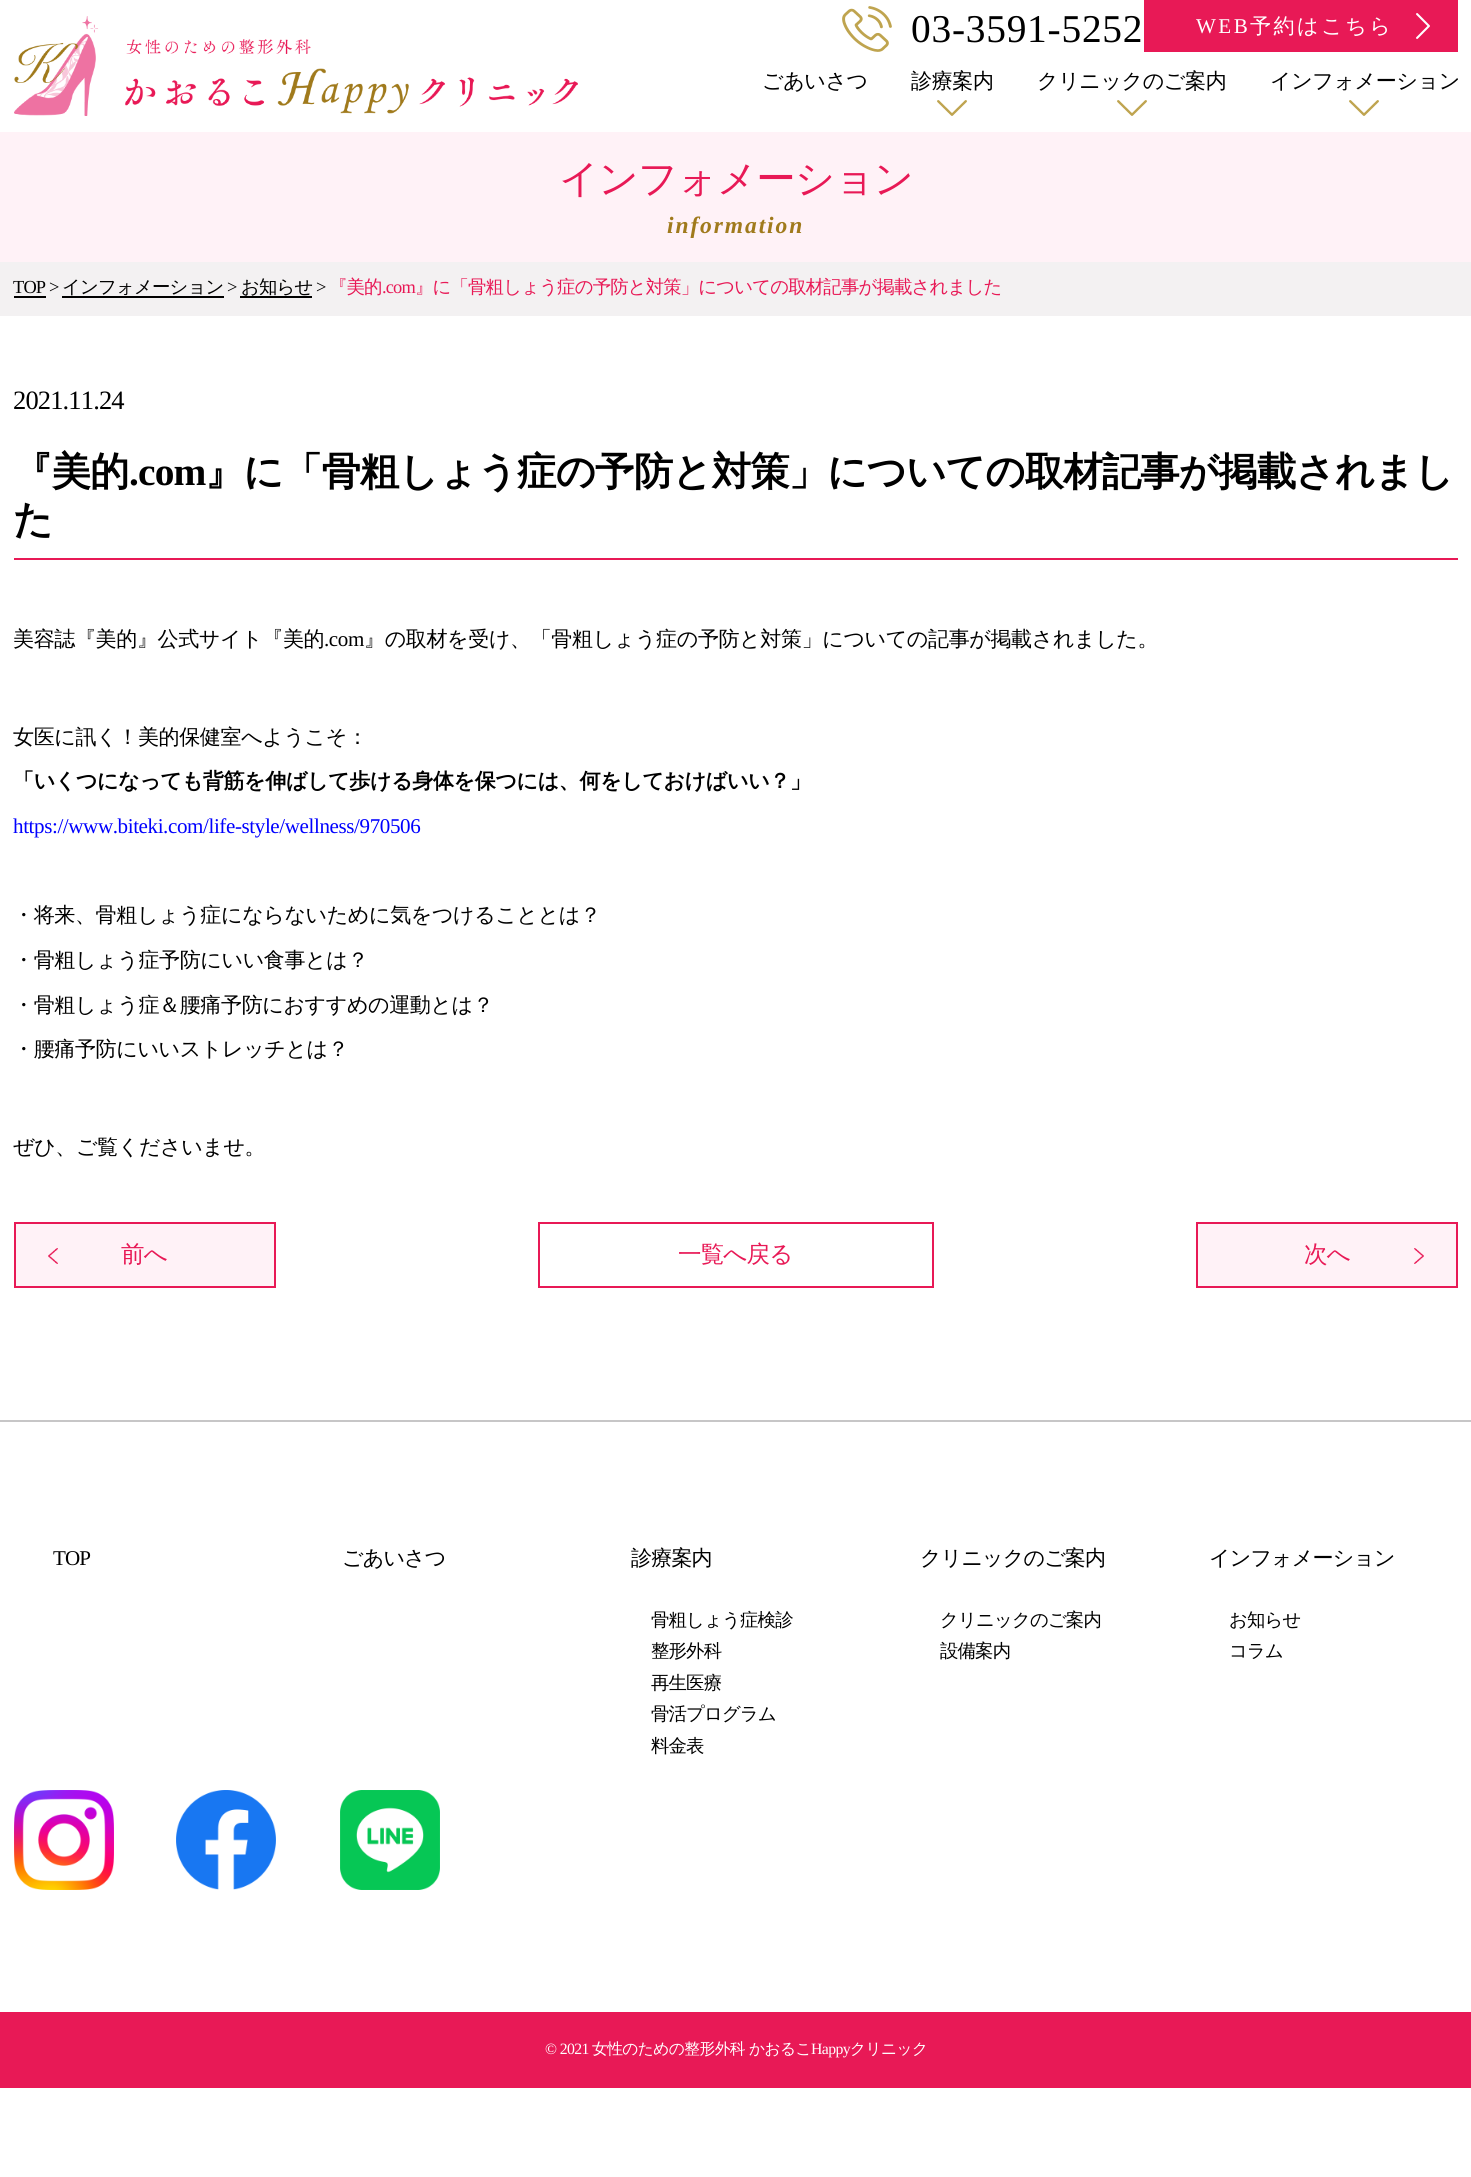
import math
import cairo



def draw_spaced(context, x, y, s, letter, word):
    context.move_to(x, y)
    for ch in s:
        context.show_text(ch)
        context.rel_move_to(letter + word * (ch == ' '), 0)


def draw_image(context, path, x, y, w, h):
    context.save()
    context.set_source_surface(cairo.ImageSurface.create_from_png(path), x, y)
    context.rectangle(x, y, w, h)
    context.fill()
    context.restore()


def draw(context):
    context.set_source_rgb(1, 1, 1)
    context.paint()
    draw_image(context, "images/1.png", 14, 16, 564, 100)
    draw_image(context, "images/2.png", 842, 6, 50, 46)
    context.set_source_rgb(232 / 255, 25 / 255, 86 / 255)
    context.rectangle(1144, 0, 314, 52)
    context.fill()
    draw_image(context, "images/3.png", 1416, 13, 14, 26)
    draw_image(context, "images/4.png", 937, 100, 30, 16)
    draw_image(context, "images/4.png", 1117, 100, 30, 16)
    draw_image(context, "images/4.png", 1349, 100, 30, 16)
    context.set_source_rgb(1, 242 / 255, 247 / 255)
    context.rectangle(0, 132, 1471, 130)
    context.fill()
    context.set_source_rgb(243 / 255, 241 / 255, 242 / 255)
    context.rectangle(0, 262, 1471, 54)
    context.fill()
    context.set_source_rgb(0, 0, 0)
    context.rectangle(14, 296, 32, 2)
    context.fill()
    context.rectangle(62, 296, 162, 2)
    context.fill()
    context.rectangle(240, 296, 72, 2)
    context.fill()
    context.set_source_rgb(232 / 255, 25 / 255, 86 / 255)
    context.rectangle(14, 558, 1444, 2)
    context.fill()
    context.set_source_rgb(1, 242 / 255, 247 / 255)
    context.rectangle(15, 1223, 260, 64)
    context.fill_preserve()
    context.set_source_rgb(232 / 255, 25 / 255, 86 / 255)
    context.stroke()
    draw_image(context, "images/5.png", 48, 1248, 10, 16)
    context.rectangle(539, 1223, 394, 64)
    context.stroke()
    context.set_source_rgb(1, 242 / 255, 247 / 255)
    context.rectangle(1197, 1223, 260, 64)
    context.fill_preserve()
    context.set_source_rgb(232 / 255, 25 / 255, 86 / 255)
    context.stroke()
    draw_image(context, "images/6.png", 1414, 1248, 10, 16)
    context.set_source_rgb(199 / 255, 198 / 255, 199 / 255)
    context.rectangle(0, 1420, 1471, 2)
    context.fill()
    draw_image(context, "images/7.png", 14, 1790, 100, 100)
    draw_image(context, "images/8.png", 176, 1790, 100, 100)
    draw_image(context, "images/9.png", 340, 1790, 100, 100)
    context.set_source_rgb(232 / 255, 25 / 255, 86 / 255)
    context.rectangle(0, 2012, 1471, 76)
    context.fill()
    context.select_font_face("Liberation Serif")
    context.set_font_size(39.4)
    context.set_source_rgb(0, 0, 0)
    draw_spaced(context, 911, 42, "03-3591-5252", 0.75, 0)
    context.set_font_size(21.05)
    context.set_source_rgb(1, 1, 1)
    draw_spaced(context, 1196, 33, "WEB", 2.5, 0)
    context.select_font_face("WenQuanYi Zen Hei Medium")
    draw_spaced(context, 1250, 33, "予約はこちら", 2.5, 0)
    context.set_source_rgb(0, 0, 0)
    draw_spaced(context, 762, 88, "ごあいさつ", -0.4, 0)
    draw_spaced(context, 911, 88, "診療案内", -0.4, 0)
    draw_spaced(context, 1037, 88, "クリニックのご案内", -0.4, 0)
    draw_spaced(context, 1270, 88, "インフォメーション", -0.4, 0)
    context.set_font_size(39.4)
    context.set_source_rgb(232 / 255, 25 / 255, 86 / 255)
    draw_spaced(context, 559, 192, "インフォメーション", -0.85, 0)
    context.select_font_face("Liberation Serif", cairo.FontSlant.ITALIC, cairo.FontWeight.BOLD)
    context.set_font_size(23.5)
    context.set_source_rgb(160 / 255, 122 / 255, 28 / 255)
    draw_spaced(context, 667, 233, "information", 1.9, 0)
    context.select_font_face("Liberation Serif")
    context.set_font_size(18.4)
    context.set_source_rgb(0, 0, 0)
    draw_spaced(context, 13, 293, "TOP >", -0.85, 0)
    context.select_font_face("WenQuanYi Zen Hei Medium")
    draw_spaced(context, 62, 293, "インフォメーション", -0.85, 0)
    context.select_font_face("Liberation Serif")
    draw_spaced(context, 227, 293, ">", -0.85, 0)
    context.select_font_face("WenQuanYi Zen Hei Medium")
    draw_spaced(context, 241, 293, "お知らせ", -0.85, 0)
    context.select_font_face("Liberation Serif")
    draw_spaced(context, 316, 293, ">", -0.85, 0)
    context.select_font_face("WenQuanYi Zen Hei Medium")
    context.set_source_rgb(232 / 255, 25 / 255, 86 / 255)
    draw_spaced(context, 329, 293, "『美的", -0.85, 0)
    context.select_font_face("Liberation Serif")
    draw_spaced(context, 382, 293, ".com", -0.85, 0)
    context.select_font_face("WenQuanYi Zen Hei Medium")
    draw_spaced(context, 415, 293, "』に「骨粗しょう症の予防と対策」についての取材記事が掲載されました", -0.85, 0)
    context.select_font_face("Liberation Serif")
    context.set_font_size(26.5)
    context.set_source_rgb(0, 0, 0)
    draw_spaced(context, 13, 409, "2021.11.24", -0.85, 0)
    context.select_font_face("WenQuanYi Zen Hei", cairo.FontSlant.NORMAL, cairo.FontWeight.BOLD)
    context.set_font_size(39.4)
    draw_spaced(context, 13, 485, "『美的", -0.85, 0)
    context.select_font_face("Liberation Serif", cairo.FontSlant.NORMAL, cairo.FontWeight.BOLD)
    draw_spaced(context, 129, 485, ".com", -0.85, 0)
    context.select_font_face("WenQuanYi Zen Hei", cairo.FontSlant.NORMAL, cairo.FontWeight.BOLD)
    draw_spaced(context, 205, 485, "』に「骨粗しょう症の予防と対策」についての取材記事が掲載されまし", -0.85, 0)
    draw_spaced(context, 13, 533, "た", -0.85, 0)
    context.select_font_face("WenQuanYi Zen Hei Medium")
    context.set_font_size(21.05)
    draw_spaced(context, 13, 646, "美容誌『美的』公式サイト『美的", -0.4, 0)
    context.select_font_face("Liberation Serif")
    draw_spaced(context, 324, 646, ".com", -0.4, 0)
    context.select_font_face("WenQuanYi Zen Hei Medium")
    draw_spaced(context, 364, 646, "』の取材を受け、「骨粗しょう症の予防と対策」についての記事が掲載されました。", -0.4, 0)
    draw_spaced(context, 13, 744, "女医に訊く！美的保健室へようこそ：", -0.4, 0)
    context.select_font_face("WenQuanYi Zen Hei", cairo.FontSlant.NORMAL, cairo.FontWeight.BOLD)
    draw_spaced(context, 13, 788, "「いくつになっても背筋を伸ばして歩ける身体を保つには、何をしておけばいい？」", -0.4, 0)
    context.select_font_face("Liberation Serif")
    context.set_source_rgb(0, 0, 1)
    draw_spaced(context, 13, 833, "https://www.biteki.com/life-style/wellness/970506", -0.4, 0)
    context.select_font_face("WenQuanYi Zen Hei Medium")
    context.set_source_rgb(0, 0, 0)
    draw_spaced(context, 13, 922, "・将来、骨粗しょう症にならないために気をつけることとは？", -0.4, 0)
    draw_spaced(context, 13, 967, "・骨粗しょう症予防にいい食事とは？", -0.4, 0)
    draw_spaced(context, 13, 1012, "・骨粗しょう症＆腰痛予防におすすめの運動とは？", -0.4, 0)
    draw_spaced(context, 13, 1056, "・腰痛予防にいいストレッチとは？", -0.4, 0)
    draw_spaced(context, 13, 1154, "ぜひ、ご覧くださいませ。", -0.4, 0)
    context.set_font_size(23.5)
    context.set_source_rgb(232 / 255, 25 / 255, 86 / 255)
    draw_spaced(context, 121, 1262, "前へ", -0.85, 0)
    draw_spaced(context, 678, 1262, "一覧へ戻る", -0.85, 0)
    draw_spaced(context, 1304, 1262, "次へ", -0.85, 0)
    context.select_font_face("Liberation Serif")
    context.set_font_size(21.05)
    context.set_source_rgb(0, 0, 0)
    draw_spaced(context, 53, 1565, "TOP", -0.85, 0)
    context.select_font_face("WenQuanYi Zen Hei Medium")
    draw_spaced(context, 342, 1565, "ごあいさつ", -0.85, 0)
    draw_spaced(context, 631, 1565, "診療案内", -0.85, 0)
    context.set_font_size(18.4)
    draw_spaced(context, 651, 1626, "⾻粗しょう症検診", -0.85, 0)
    draw_spaced(context, 651, 1657, "整形外科", -0.85, 0)
    draw_spaced(context, 651, 1689, "再生医療", -0.85, 0)
    draw_spaced(context, 651, 1720, "骨活プログラム", -0.85, 0)
    draw_spaced(context, 651, 1752, "料⾦表", -0.85, 0)
    context.set_font_size(21.05)
    draw_spaced(context, 920, 1565, "クリニックのご案内", -0.85, 0)
    context.set_font_size(18.4)
    draw_spaced(context, 940, 1626, "クリニックのご案内", -0.85, 0)
    draw_spaced(context, 940, 1657, "設備案内", -0.85, 0)
    context.set_font_size(21.05)
    draw_spaced(context, 1209, 1565, "インフォメーション", -0.85, 0)
    context.set_font_size(18.4)
    draw_spaced(context, 1229, 1626, "お知らせ", -0.85, 0)
    draw_spaced(context, 1229, 1657, "コラム", -0.85, 0)
    context.select_font_face("Liberation Serif")
    context.set_font_size(15.75)
    context.set_source_rgb(1, 1, 1)
    draw_spaced(context, 545, 2054, "© 2021", -0.6, 0)
    context.select_font_face("WenQuanYi Zen Hei Medium")
    draw_spaced(context, 592, 2054, "⼥性のための整形外科", -0.6, 0)
    draw_spaced(context, 749, 2054, "かおるこ", -0.6, 0)
    context.select_font_face("Liberation Serif")
    draw_spaced(context, 811, 2054, "Happy", -0.6, 0)
    context.select_font_face("WenQuanYi Zen Hei Medium")
    draw_spaced(context, 850, 2054, "クリニック", -0.6, 0)


surface = cairo.ImageSurface(cairo.Format.RGB24, 1471, 2177)
context = cairo.Context(surface)
options = cairo.FontOptions()
options.set_hint_metrics(cairo.HintMetrics.OFF)
options.set_hint_style(cairo.HintStyle.NONE)
context.set_font_options(options)
context.set_miter_limit(4)
draw(context)
surface.write_to_png("out.png")
